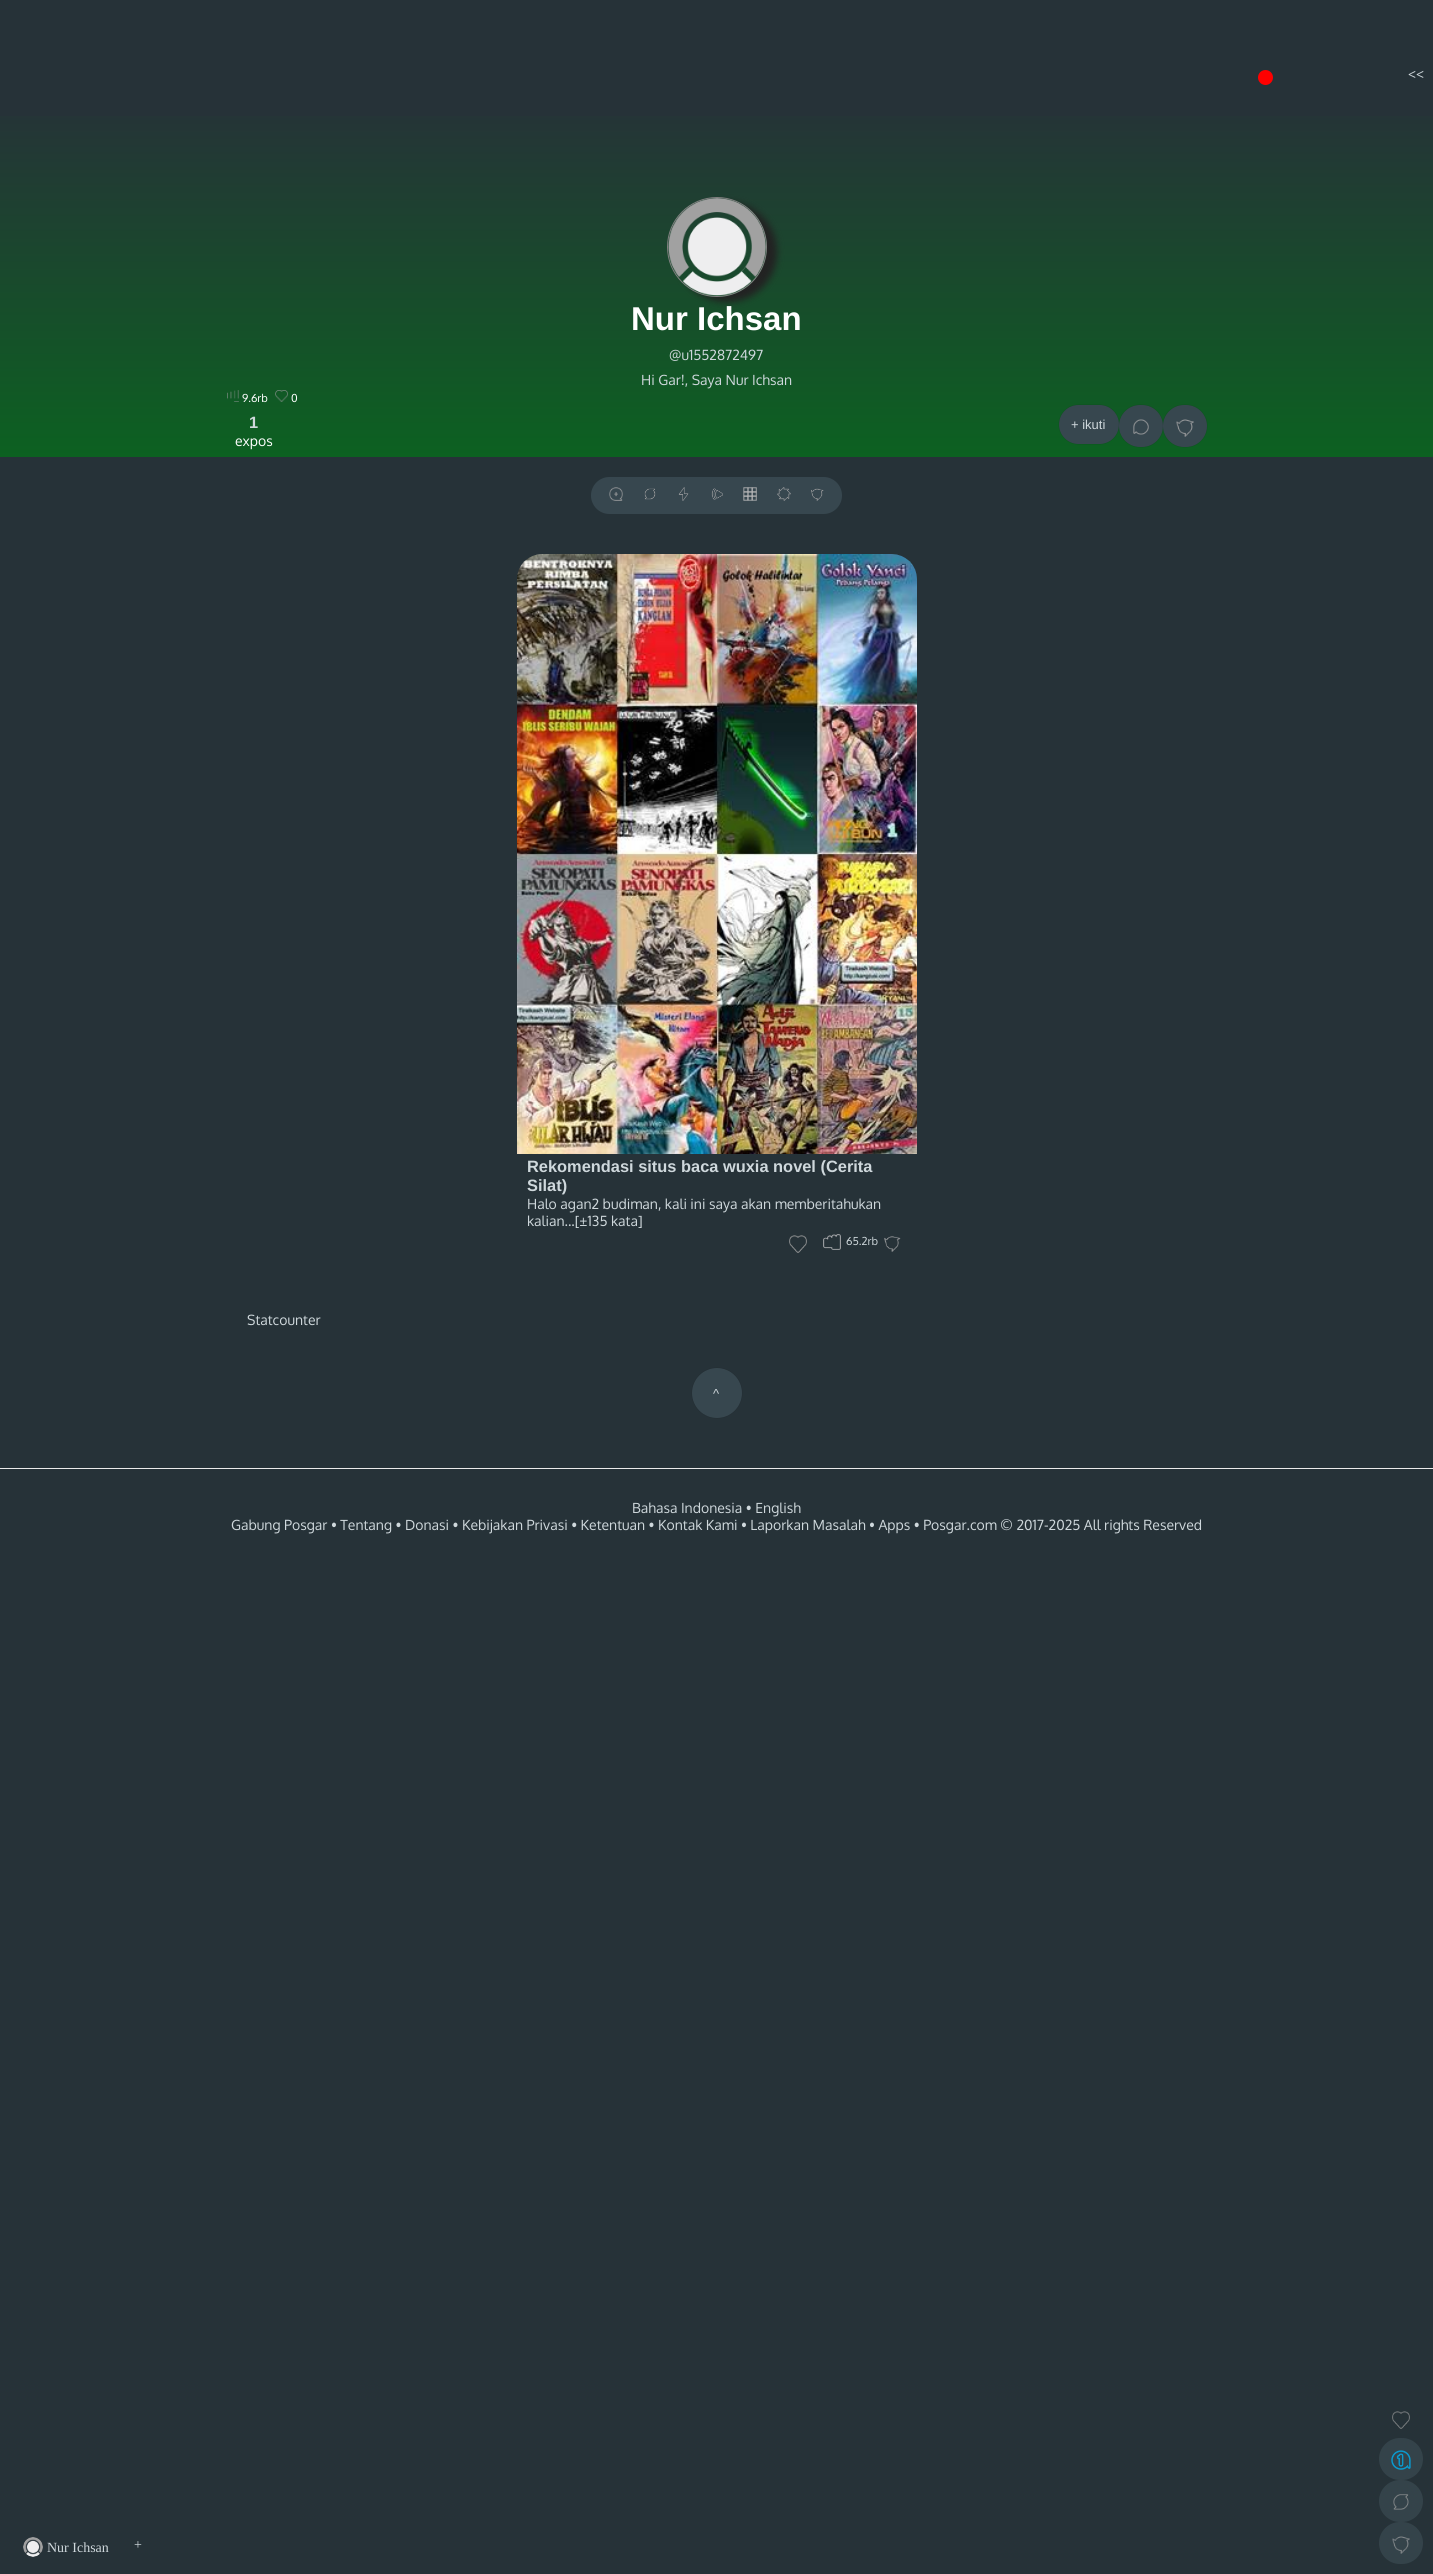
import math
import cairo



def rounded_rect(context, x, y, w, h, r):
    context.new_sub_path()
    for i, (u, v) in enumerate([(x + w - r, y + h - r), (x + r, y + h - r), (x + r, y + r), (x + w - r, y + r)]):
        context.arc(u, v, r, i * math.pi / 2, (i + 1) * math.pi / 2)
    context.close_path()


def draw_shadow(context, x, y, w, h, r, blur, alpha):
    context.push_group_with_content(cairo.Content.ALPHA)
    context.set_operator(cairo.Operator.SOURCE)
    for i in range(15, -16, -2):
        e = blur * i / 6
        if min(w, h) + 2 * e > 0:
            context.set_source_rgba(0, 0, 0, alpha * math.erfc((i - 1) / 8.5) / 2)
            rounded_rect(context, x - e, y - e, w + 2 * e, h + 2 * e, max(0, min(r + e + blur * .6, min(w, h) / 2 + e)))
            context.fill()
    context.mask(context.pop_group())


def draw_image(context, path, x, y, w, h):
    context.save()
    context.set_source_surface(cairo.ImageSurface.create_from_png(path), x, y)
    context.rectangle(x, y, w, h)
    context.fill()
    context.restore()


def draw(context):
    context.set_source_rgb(38 / 255, 50 / 255, 56 / 255)
    context.paint()
    context.set_source_rgb(1, 0, 0)
    context.arc(1265.5, 77.5, 7.5, 0, 2 * math.pi)
    context.fill()
    gradient = cairo.LinearGradient(717, 97, 717, 457)
    gradient.add_color_stop_rgba(0, 38 / 255, 50 / 255, 56 / 255, 1)
    gradient.add_color_stop_rgba(1, 12 / 255, 97 / 255, 33 / 255, 1)
    context.set_source(gradient)
    context.rectangle(0, 116, 1433, 341)
    context.fill()
    context.save()
    context.set_fill_rule(cairo.FillRule.EVEN_ODD)
    context.new_path()
    context.move_to(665, 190)
    context.line_to(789, 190)
    context.line_to(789, 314)
    context.line_to(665, 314)
    context.close_path()
    context.move_to(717, 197)
    context.curve_to(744.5, 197, 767, 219.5, 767, 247)
    context.curve_to(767, 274.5, 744.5, 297, 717, 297)
    context.curve_to(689.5, 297, 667, 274.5, 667, 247)
    context.curve_to(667, 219.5, 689.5, 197, 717, 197)
    context.close_path()
    context.clip()
    context.set_source_rgb(34 / 255, 34 / 255, 34 / 255)
    draw_shadow(context, 677, 202, 100, 100, 50, 3.5, 1)
    context.restore()
    context.arc(717, 247, 49.5, 0, 2 * math.pi)
    context.set_source_rgb(128 / 255, 128 / 255, 128 / 255)
    context.set_line_width(1)
    context.stroke()
    draw_image(context, "images/1.png", 668, 198, 98, 98)
    draw_image(context, "images/2.png", 227, 390, 12, 12)
    draw_image(context, "images/3.png", 275, 390, 13, 12)
    context.set_source_rgb(0, 0, 0)
    draw_shadow(context, 1059, 405, 60, 39, 19.5, 0.5, 0.2)
    context.set_source_rgb(55 / 255, 71 / 255, 79 / 255)
    rounded_rect(context, 1059, 405, 60, 39, 19.5)
    context.fill()
    context.set_source_rgb(0, 0, 0)
    draw_shadow(context, 1119, 405, 44, 42, 21, 0.5, 0.2)
    context.set_source_rgb(55 / 255, 71 / 255, 79 / 255)
    rounded_rect(context, 1119, 405, 44, 42, 21)
    context.fill()
    draw_image(context, "images/4.png", 1133, 419, 16, 16)
    context.set_source_rgb(0, 0, 0)
    draw_shadow(context, 1163, 405, 44, 42, 21, 0.5, 0.2)
    context.set_source_rgb(55 / 255, 71 / 255, 79 / 255)
    rounded_rect(context, 1163, 405, 44, 42, 21)
    context.fill()
    draw_image(context, "images/5.png", 1176, 419, 18, 18)
    rounded_rect(context, 591, 477, 251, 37, 18.5)
    context.fill()
    draw_image(context, "images/6.png", 609, 487, 14, 14)
    draw_image(context, "images/7.png", 644, 488, 12, 12)
    draw_image(context, "images/8.png", 678, 487, 11, 14)
    draw_image(context, "images/9.png", 711, 488, 12, 12)
    draw_image(context, "images/10.png", 743, 487, 14, 14)
    draw_image(context, "images/11.png", 777, 487, 14, 14)
    draw_image(context, "images/12.png", 811, 488, 13, 13)
    draw_image(context, "images/13.png", 517, 554, 400, 600)
    draw_image(context, "images/14.png", 789, 1235, 18, 18)
    draw_image(context, "images/15.png", 823, 1234, 18, 16)
    draw_image(context, "images/16.png", 884, 1236, 17, 16)
    context.set_source_rgb(0, 0, 0)
    draw_shadow(context, 692, 1368, 50, 50, 25, 0.5, 0.2)
    context.set_source_rgb(55 / 255, 71 / 255, 79 / 255)
    context.arc(717, 1393, 25, 0, 2 * math.pi)
    context.fill()
    context.set_source_rgb(234 / 255, 234 / 255, 234 / 255)
    context.rectangle(0, 1468, 1433, 1)
    context.fill()
    draw_image(context, "images/17.png", 23, 2537, 20, 20)
    draw_image(context, "images/18.png", 1392, 2411, 18, 18)
    context.set_source_rgb(52 / 255, 67 / 255, 74 / 255)
    rounded_rect(context, 1379, 2438, 44, 42, 21)
    context.fill()
    draw_image(context, "images/19.png", 1391, 2450, 20, 20)
    rounded_rect(context, 1379, 2480, 44, 42, 21)
    context.fill()
    draw_image(context, "images/20.png", 1393, 2494, 16, 16)
    rounded_rect(context, 1379, 2522, 44, 42, 21)
    context.fill()
    draw_image(context, "images/21.png", 1392, 2536, 18, 18)
    context.select_font_face("Oxygen")
    context.set_font_size(14)
    context.set_source_rgb(207 / 255, 216 / 255, 220 / 255)
    context.move_to(1408, 79)
    context.show_text("<<")
    context.select_font_face("Liberation Sans", cairo.FontSlant.NORMAL, cairo.FontWeight.BOLD)
    context.set_font_size(33)
    context.set_source_rgb(1, 1, 1)
    context.move_to(631, 330)
    context.show_text("Nur Ichsan")
    context.select_font_face("Oxygen")
    context.set_font_size(14)
    context.set_source_rgb(207 / 255, 216 / 255, 220 / 255)
    context.move_to(669, 360)
    context.show_text("@u1552872497")
    context.move_to(641, 385)
    context.show_text("Hi Gar!, Saya Nur Ichsan")
    context.set_font_size(11)
    context.set_source_rgb(1, 1, 1)
    context.move_to(242, 402)
    context.show_text("9.6rb")
    context.move_to(291, 402)
    context.show_text("0")
    context.select_font_face("Liberation Sans", cairo.FontSlant.NORMAL, cairo.FontWeight.BOLD)
    context.set_font_size(16.4)
    context.set_source_rgb(207 / 255, 216 / 255, 220 / 255)
    context.move_to(249, 428)
    context.show_text("1")
    context.select_font_face("Oxygen")
    context.set_font_size(14)
    context.set_source_rgb(1, 1, 1)
    context.move_to(235, 446)
    context.show_text("expos")
    context.select_font_face("Liberation Sans")
    context.set_font_size(13)
    context.set_source_rgb(207 / 255, 216 / 255, 220 / 255)
    context.move_to(1071, 429)
    context.show_text("+ ikuti")
    context.select_font_face("Liberation Sans", cairo.FontSlant.NORMAL, cairo.FontWeight.BOLD)
    context.set_font_size(16.4)
    context.move_to(527, 1172)
    context.show_text("Rekomendasi situs baca wuxia novel (Cerita")
    context.move_to(527, 1191)
    context.show_text("Silat)")
    context.select_font_face("Oxygen")
    context.set_font_size(14)
    context.move_to(527, 1209)
    context.show_text("Halo agan2 budiman, kali ini saya akan memberitahukan")
    context.move_to(527, 1226)
    context.show_text("kalian...[±135 kata]")
    context.set_font_size(11)
    context.move_to(846, 1245)
    context.show_text("65.2rb")
    context.set_font_size(14)
    context.move_to(247, 1325)
    context.show_text("Statcounter")
    context.select_font_face("Liberation Sans")
    context.set_font_size(13)
    context.move_to(713, 1398)
    context.show_text("^")
    context.select_font_face("Oxygen")
    context.set_font_size(14)
    context.move_to(632, 1513)
    context.show_text("Bahasa Indonesia • English")
    context.move_to(231, 1530)
    context.show_text("Gabung Posgar • Tentang • Donasi • Kebijakan Privasi • Ketentuan • Kontak Kami • Laporkan Masalah • Apps • Posgar.com © 2017-2025 All rights Reserved")
    context.select_font_face("Liberation Serif")
    context.move_to(47, 2552)
    context.show_text("Nur Ichsan")
    context.move_to(134, 2549)
    context.show_text("+")


surface = cairo.ImageSurface(cairo.Format.RGB24, 1433, 2574)
context = cairo.Context(surface)
options = cairo.FontOptions()
options.set_hint_metrics(cairo.HintMetrics.OFF)
options.set_hint_style(cairo.HintStyle.NONE)
context.set_font_options(options)
context.set_miter_limit(4)
draw(context)
surface.write_to_png("out.png")
